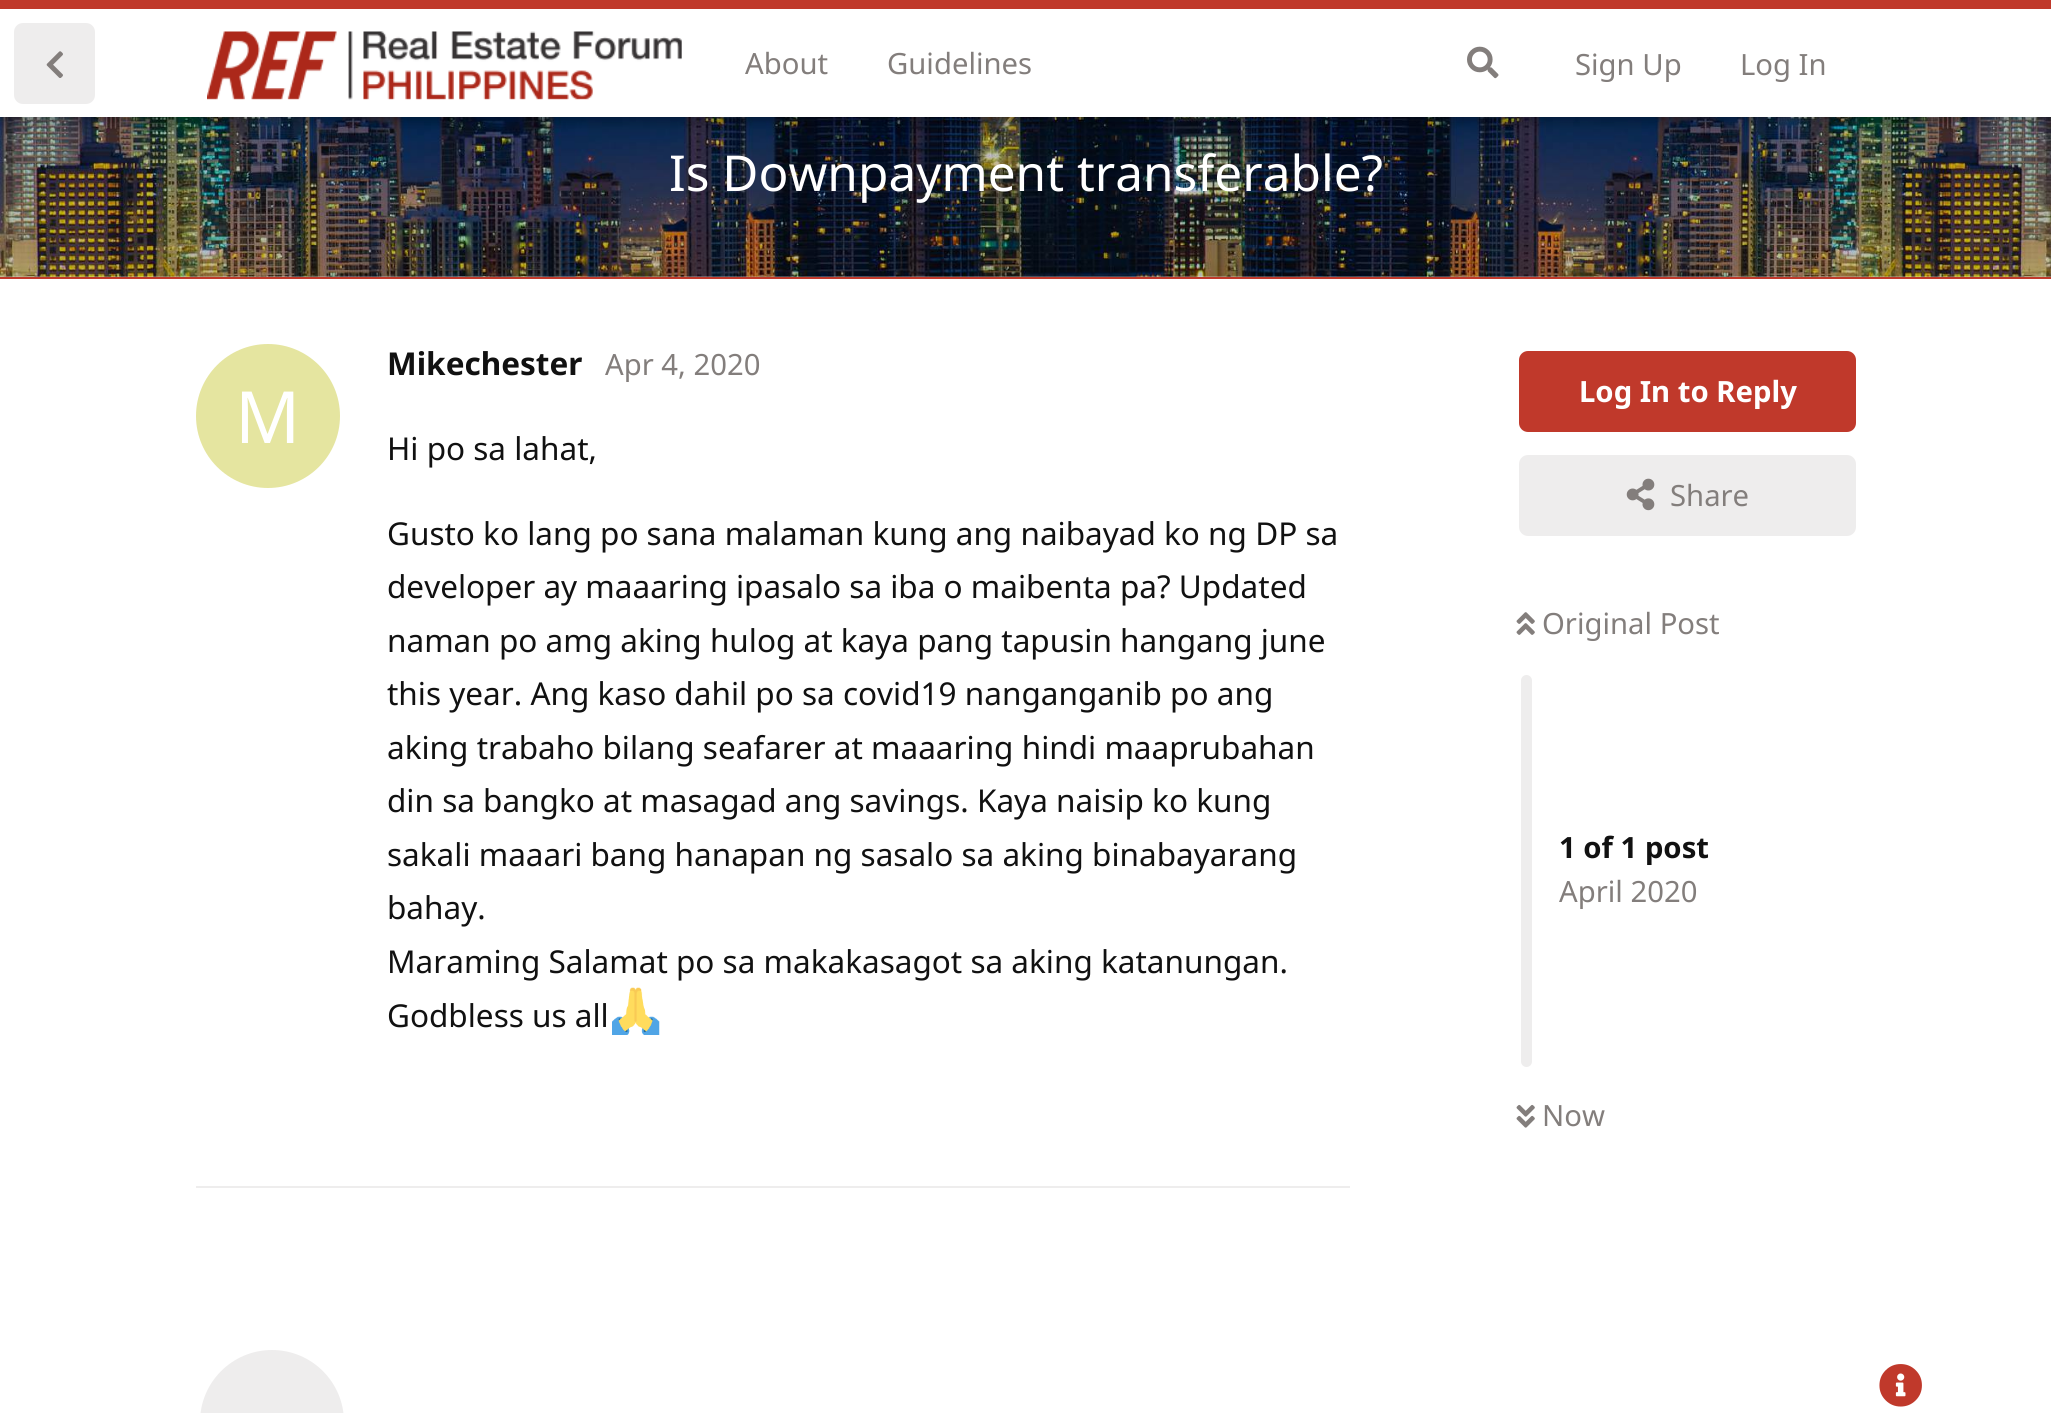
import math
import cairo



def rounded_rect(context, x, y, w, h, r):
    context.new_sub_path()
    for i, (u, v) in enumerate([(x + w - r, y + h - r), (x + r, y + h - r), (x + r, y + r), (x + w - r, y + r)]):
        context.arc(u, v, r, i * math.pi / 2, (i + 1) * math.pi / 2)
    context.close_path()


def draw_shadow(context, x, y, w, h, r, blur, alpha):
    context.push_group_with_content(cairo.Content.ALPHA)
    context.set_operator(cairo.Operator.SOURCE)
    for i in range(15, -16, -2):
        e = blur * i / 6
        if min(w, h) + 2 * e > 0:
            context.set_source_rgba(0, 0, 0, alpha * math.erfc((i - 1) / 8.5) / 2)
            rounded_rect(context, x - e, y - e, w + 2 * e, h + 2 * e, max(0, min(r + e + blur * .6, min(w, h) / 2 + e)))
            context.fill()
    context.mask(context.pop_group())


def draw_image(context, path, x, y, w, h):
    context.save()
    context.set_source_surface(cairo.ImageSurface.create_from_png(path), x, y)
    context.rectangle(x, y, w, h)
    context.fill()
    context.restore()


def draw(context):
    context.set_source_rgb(1, 1, 1)
    context.paint()
    draw_image(context, "images/4.png", 0, 117, 2051, 160)
    context.set_source_rgb(0, 0, 0)
    draw_shadow(context, 0, 5, 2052, 117, 0, 7, 0.35)
    context.set_source_rgb(1, 1, 1)
    context.rectangle(0, 9, 2051, 108)
    context.fill()
    context.set_source_rgb(192 / 255, 57 / 255, 43 / 255)
    context.rectangle(0, 0, 2051, 9)
    context.fill()
    context.set_source_rgb(238 / 255, 237 / 255, 237 / 255)
    rounded_rect(context, 14, 23, 81, 81, 9)
    context.fill()
    draw_image(context, "images/1.png", 46, 51, 17, 27)
    draw_image(context, "images/2.png", 207, 31, 475, 69)
    draw_image(context, "images/3.png", 1467, 46, 32, 33)
    context.set_source_rgb(192 / 255, 57 / 255, 43 / 255)
    context.rectangle(0, 277, 2051, 2)
    context.fill()
    context.set_source_rgb(238 / 255, 237 / 255, 237 / 255)
    context.rectangle(196, 1186, 1154, 2)
    context.fill()
    context.set_source_rgb(229 / 255, 229 / 255, 160 / 255)
    context.arc(268, 416, 72, 0, 2 * math.pi)
    context.fill()
    draw_image(context, "images/5.png", 612, 987, 48, 48)
    context.set_source_rgb(238 / 255, 237 / 255, 237 / 255)
    rounded_rect(context, 200, 1350, 144, 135, 72)
    context.fill()
    context.set_source_rgb(192 / 255, 57 / 255, 43 / 255)
    rounded_rect(context, 1519, 351, 337, 81, 9)
    context.fill()
    context.set_source_rgb(238 / 255, 237 / 255, 237 / 255)
    rounded_rect(context, 1519, 455, 337, 81, 9)
    context.fill()
    draw_image(context, "images/6.png", 1626, 478, 29, 33)
    draw_image(context, "images/7.png", 1516, 612, 19, 23)
    rounded_rect(context, 1521, 675, 11, 392, 5.5)
    context.fill()
    draw_image(context, "images/8.png", 1516, 1104, 19, 24)
    draw_image(context, "images/9.png", 1879, 1364, 43, 43)
    context.select_font_face("Noto Sans")
    context.set_font_size(29.25)
    context.set_source_rgb(131 / 255, 126 / 255, 124 / 255)
    context.move_to(745, 74)
    context.show_text("About")
    context.move_to(887, 74)
    context.show_text("Guidelines")
    context.move_to(1575, 75)
    context.show_text("Sign Up")
    context.move_to(1740, 75)
    context.show_text("Log In")
    context.set_font_size(49.5)
    context.set_source_rgb(1, 1, 1)
    context.move_to(669, 191)
    context.show_text("Is Downpayment transferable?")
    context.select_font_face("Noto Sans", cairo.FontSlant.NORMAL, cairo.FontWeight.BOLD)
    context.set_font_size(31.5)
    context.set_source_rgb(17 / 255, 17 / 255, 17 / 255)
    context.move_to(387, 375)
    context.show_text("Mikechester")
    context.select_font_face("Noto Sans")
    context.set_font_size(72)
    context.set_source_rgb(1, 1, 1)
    context.move_to(235, 443)
    context.show_text("M")
    context.set_font_size(29.25)
    context.set_source_rgb(131 / 255, 126 / 255, 124 / 255)
    context.move_to(605, 375)
    context.show_text("Apr 4, 2020")
    context.set_font_size(31.5)
    context.set_source_rgb(17 / 255, 17 / 255, 17 / 255)
    context.move_to(387, 460)
    context.show_text("Hi po sa lahat,")
    context.move_to(387, 545)
    context.show_text("Gusto ko lang po sana malaman kung ang naibayad ko ng DP sa")
    context.move_to(387, 598)
    context.show_text("developer ay maaaring ipasalo sa iba o maibenta pa? Updated")
    context.move_to(387, 652)
    context.show_text("naman po amg aking hulog at kaya pang tapusin hangang june")
    context.move_to(387, 705)
    context.show_text("this year. Ang kaso dahil po sa covid19 nanganganib po ang")
    context.move_to(387, 759)
    context.show_text("aking trabaho bilang seafarer at maaaring hindi maaprubahan")
    context.move_to(387, 812)
    context.show_text("din sa bangko at masagad ang savings. Kaya naisip ko kung")
    context.move_to(387, 866)
    context.show_text("sakali maaari bang hanapan ng sasalo sa aking binabayarang")
    context.move_to(387, 919)
    context.show_text("bahay.")
    context.move_to(387, 973)
    context.show_text("Maraming Salamat po sa makakasagot sa aking katanungan.")
    context.move_to(387, 1027)
    context.show_text("Godbless us all")
    context.select_font_face("Noto Sans", cairo.FontSlant.NORMAL, cairo.FontWeight.BOLD)
    context.set_font_size(29.25)
    context.set_source_rgb(1, 1, 1)
    context.move_to(1579, 402)
    context.show_text("Log In to Reply")
    context.select_font_face("Noto Sans")
    context.set_source_rgb(131 / 255, 126 / 255, 124 / 255)
    context.move_to(1670, 506)
    context.show_text("Share")
    context.move_to(1542, 634)
    context.show_text("Original Post")
    context.select_font_face("Noto Sans", cairo.FontSlant.NORMAL, cairo.FontWeight.BOLD)
    context.set_source_rgb(17 / 255, 17 / 255, 17 / 255)
    context.move_to(1559, 858)
    context.show_text("1 of 1 post")
    context.select_font_face("Noto Sans")
    context.set_source_rgb(131 / 255, 126 / 255, 124 / 255)
    context.move_to(1559, 902)
    context.show_text("April 2020")
    context.move_to(1542, 1126)
    context.show_text("Now")


surface = cairo.ImageSurface(cairo.Format.RGB24, 2051, 1413)
context = cairo.Context(surface)
options = cairo.FontOptions()
options.set_hint_metrics(cairo.HintMetrics.OFF)
options.set_hint_style(cairo.HintStyle.NONE)
context.set_font_options(options)
context.set_miter_limit(4)
draw(context)
surface.write_to_png("out.png")
